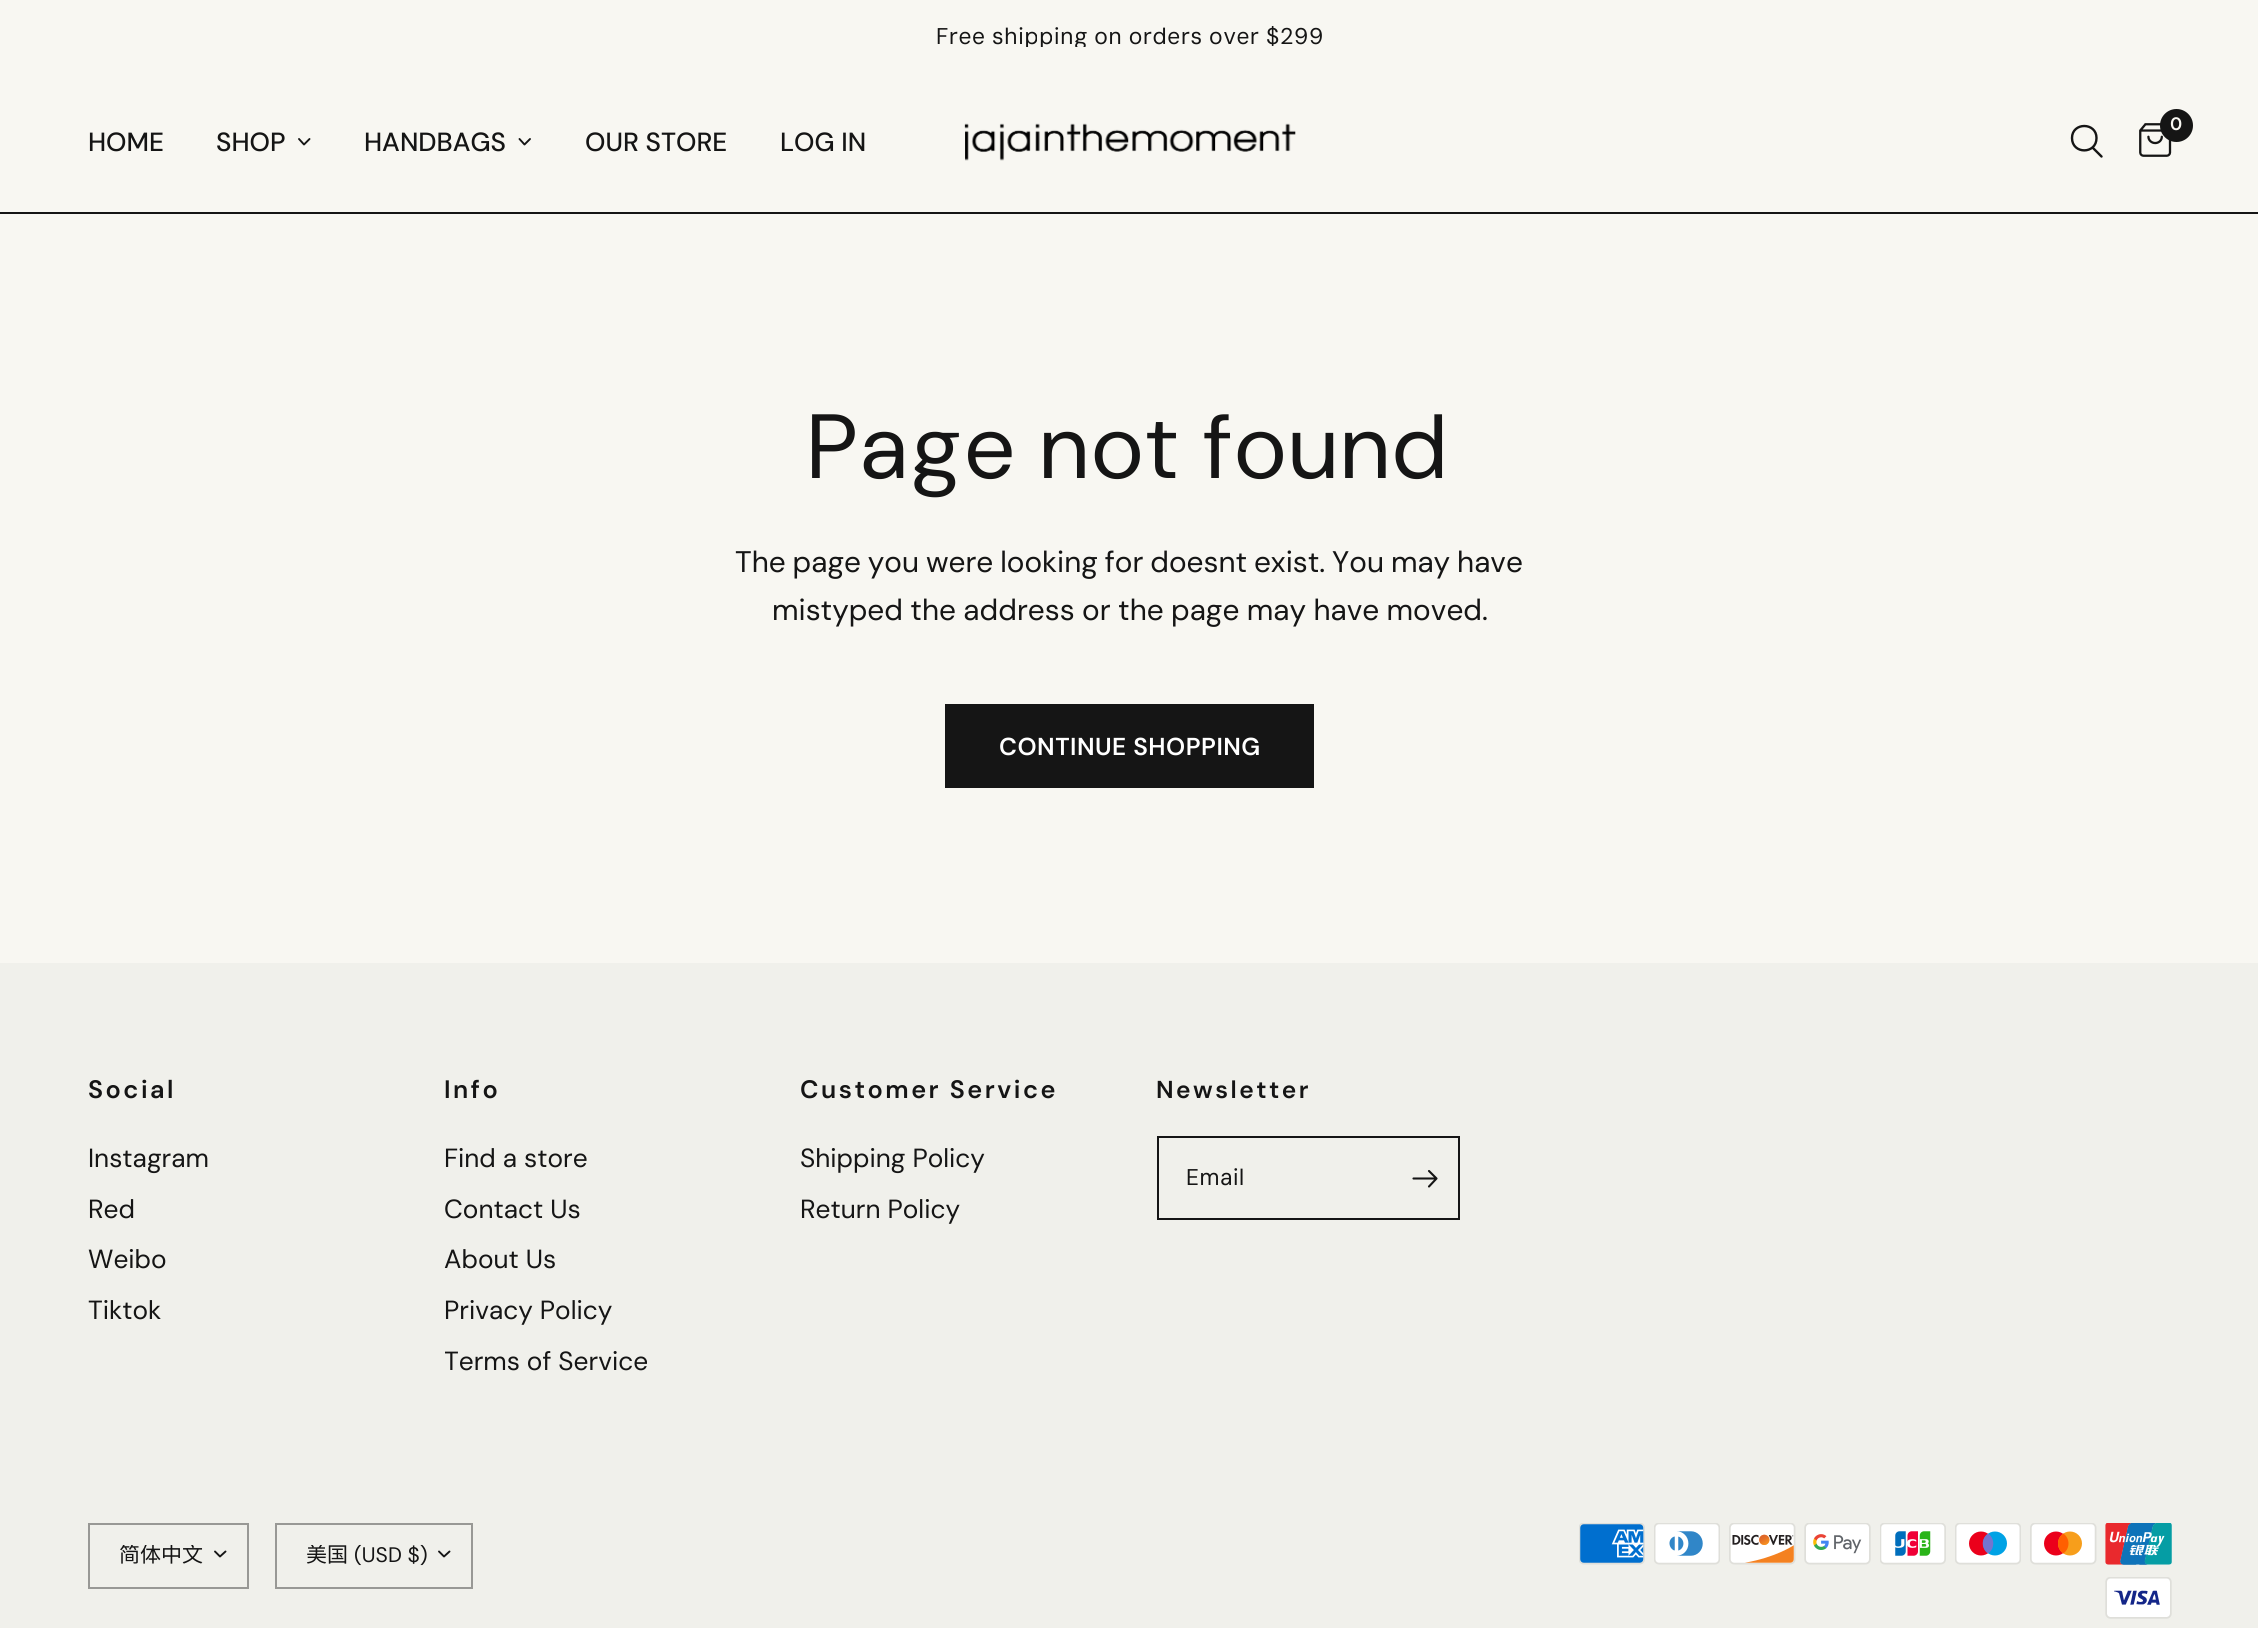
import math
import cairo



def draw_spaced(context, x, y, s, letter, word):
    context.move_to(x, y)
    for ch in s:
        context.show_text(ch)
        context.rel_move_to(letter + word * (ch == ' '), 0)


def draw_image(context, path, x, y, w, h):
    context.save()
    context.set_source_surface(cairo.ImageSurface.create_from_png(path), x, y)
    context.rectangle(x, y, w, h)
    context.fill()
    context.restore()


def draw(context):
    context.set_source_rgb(248 / 255, 247 / 255, 242 / 255)
    context.paint()
    context.set_source_rgb(21 / 255, 21 / 255, 21 / 255)
    context.rectangle(0, 212, 2258, 2)
    context.fill()
    context.new_path()
    context.move_to(309.5, 139)
    context.line_to(304, 144.5)
    context.line_to(299, 139)
    context.set_line_width(1.9)
    context.set_line_cap(cairo.LineCap.ROUND)
    context.set_line_join(cairo.LineJoin.ROUND)
    context.stroke()
    context.new_path()
    context.move_to(530, 139)
    context.line_to(524.5, 144.5)
    context.line_to(519.5, 139)
    context.stroke()
    draw_image(context, "images/1.png", 964, 123, 332, 38)
    context.new_path()
    context.move_to(2093, 148)
    context.line_to(2101.5, 156.5)
    context.move_to(2096.5, 138)
    context.curve_to(2096.5, 154.5, 2072, 154.5, 2072, 138)
    context.curve_to(2072, 122, 2096.5, 122, 2096.5, 138)
    context.close_path()
    context.set_line_width(2.4)
    context.stroke()
    draw_image(context, "images/2.png", 2139, 123, 33, 34)
    context.arc(2176.5, 125.5, 16.5, 0, 2 * math.pi)
    context.fill()
    context.rectangle(945, 704, 369, 84)
    context.fill()
    context.set_source_rgb(240 / 255, 240 / 255, 235 / 255)
    context.rectangle(0, 963, 2258, 665)
    context.fill()
    context.rectangle(1158, 1137, 301, 82)
    context.set_source_rgb(21 / 255, 21 / 255, 21 / 255)
    context.set_line_width(2)
    context.set_line_cap(cairo.LineCap.BUTT)
    context.set_line_join(cairo.LineJoin.MITER)
    context.stroke()
    context.new_path()
    context.move_to(1413.5, 1178.5)
    context.line_to(1434.5, 1178.5)
    context.move_to(1429, 1171)
    context.line_to(1436.5, 1178.5)
    context.line_to(1429, 1186.5)
    context.set_line_width(2.1)
    context.set_line_cap(cairo.LineCap.ROUND)
    context.set_line_join(cairo.LineJoin.ROUND)
    context.stroke()
    context.rectangle(89, 1524, 159, 64)
    context.set_source_rgb(152 / 255, 152 / 255, 149 / 255)
    context.set_line_width(2)
    context.set_line_cap(cairo.LineCap.BUTT)
    context.set_line_join(cairo.LineJoin.MITER)
    context.stroke()
    context.new_path()
    context.move_to(225.5, 1551.5)
    context.line_to(220, 1556.5)
    context.line_to(215, 1551.5)
    context.set_source_rgb(21 / 255, 21 / 255, 21 / 255)
    context.set_line_width(1.9)
    context.set_line_cap(cairo.LineCap.ROUND)
    context.set_line_join(cairo.LineJoin.ROUND)
    context.stroke()
    context.rectangle(276, 1524, 196, 64)
    context.set_source_rgb(152 / 255, 152 / 255, 149 / 255)
    context.set_line_width(2)
    context.set_line_cap(cairo.LineCap.BUTT)
    context.set_line_join(cairo.LineJoin.MITER)
    context.stroke()
    context.new_path()
    context.move_to(449.5, 1551.5)
    context.line_to(444, 1556.5)
    context.line_to(439, 1551.5)
    context.set_source_rgb(21 / 255, 21 / 255, 21 / 255)
    context.set_line_width(1.9)
    context.set_line_cap(cairo.LineCap.ROUND)
    context.set_line_join(cairo.LineJoin.ROUND)
    context.stroke()
    draw_image(context, "images/3.png", 1579, 1523, 66, 42)
    draw_image(context, "images/4.png", 1654, 1523, 66, 42)
    draw_image(context, "images/5.png", 1729, 1523, 67, 42)
    draw_image(context, "images/6.png", 1804, 1523, 67, 42)
    draw_image(context, "images/7.png", 1880, 1523, 66, 42)
    draw_image(context, "images/8.png", 1955, 1523, 66, 42)
    draw_image(context, "images/9.png", 2030, 1523, 67, 42)
    draw_image(context, "images/10.png", 2105, 1523, 67, 42)
    draw_image(context, "images/11.png", 2105, 1577, 67, 42)
    context.save()
    context.rectangle(693, 25, 875, 22)
    context.clip()
    context.select_font_face("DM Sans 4")
    context.set_font_size(22.75)
    draw_spaced(context, 936, 44, "Free shipping on orders over $299", 0.7, -0.5)
    context.restore()
    context.select_font_face("DM Sans Medium")
    context.set_font_size(26.25)
    context.move_to(88, 151)
    context.show_text("HOME")
    context.move_to(216, 151)
    context.show_text("SHOP")
    context.move_to(364, 151)
    context.show_text("HANDBAGS")
    context.move_to(585, 151)
    context.show_text("OUR STORE")
    context.move_to(780, 151)
    context.show_text("LOG IN")
    context.select_font_face("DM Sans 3 SemiBold")
    context.set_font_size(18)
    context.set_source_rgb(248 / 255, 247 / 255, 242 / 255)
    context.move_to(2170, 130)
    context.show_text("0")
    context.select_font_face("DM Sans")
    context.set_font_size(91)
    context.set_source_rgb(21 / 255, 21 / 255, 21 / 255)
    draw_spaced(context, 808, 478, "Page not found", 4.5, 0)
    context.select_font_face("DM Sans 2")
    context.set_font_size(29.75)
    draw_spaced(context, 735, 572, "The page you were looking for doesnt exist. You may have", 0, -1)
    draw_spaced(context, 772, 620, "mistyped the address or the page may have moved.", 0, -0.5)
    context.select_font_face("DM Sans 2 SemiBold")
    context.set_font_size(24.5)
    context.set_source_rgb(1, 1, 1)
    draw_spaced(context, 999, 755, "CONTINUE SHOPPING", 0.5, 0)
    context.select_font_face("DM Sans SemiBold")
    context.set_font_size(25.25)
    context.set_source_rgb(21 / 255, 21 / 255, 21 / 255)
    draw_spaced(context, 88, 1098, "Social", 2.5, 0)
    context.select_font_face("DM Sans 3")
    context.set_font_size(26.25)
    context.move_to(88, 1167)
    context.show_text("Instagram")
    context.move_to(88, 1218)
    context.show_text("Red")
    context.move_to(88, 1268)
    context.show_text("Weibo")
    context.move_to(88, 1319)
    context.show_text("Tiktok")
    context.select_font_face("DM Sans SemiBold")
    context.set_font_size(25.25)
    draw_spaced(context, 444, 1098, "Info", 2.5, 0)
    context.select_font_face("DM Sans 3")
    context.set_font_size(26.25)
    context.move_to(444, 1167)
    context.show_text("Find a store")
    context.move_to(444, 1218)
    context.show_text("Contact Us")
    context.move_to(444, 1268)
    context.show_text("About Us")
    context.move_to(444, 1319)
    context.show_text("Privacy Policy")
    context.save()
    context.rectangle(445, 1138, 302, 245)
    context.clip()
    context.move_to(444, 1370)
    context.show_text("Terms of Service")
    context.restore()
    context.select_font_face("DM Sans SemiBold")
    context.set_font_size(25.25)
    draw_spaced(context, 800, 1098, "Customer Service", 2.5, 0)
    context.select_font_face("DM Sans 3")
    context.set_font_size(26.25)
    context.move_to(800, 1167)
    context.show_text("Shipping Policy")
    context.move_to(800, 1218)
    context.show_text("Return Policy")
    context.select_font_face("DM Sans 2 SemiBold")
    context.set_font_size(24.5)
    draw_spaced(context, 1156, 1098, "Newsletter", 2.5, 0)
    context.select_font_face("DM Sans 4")
    context.set_font_size(22.75)
    draw_spaced(context, 1186, 1185, "Email", 0.5, 0)
    context.save()
    context.rectangle(119, 1545, 86, 21)
    context.clip()
    context.select_font_face("Noto Sans CJK SC")
    context.set_font_size(21)
    context.move_to(119, 1562)
    context.show_text("简体中文")
    context.restore()
    context.save()
    context.rectangle(306, 1545, 123, 21)
    context.clip()
    context.select_font_face("Noto Sans CJK SC")
    context.set_font_size(21)
    context.move_to(306, 1562)
    context.show_text("美国")
    context.restore()
    context.set_font_size(21)
    context.move_to(354, 1562)
    context.show_text("(USD $)")


surface = cairo.ImageSurface(cairo.Format.RGB24, 2258, 1628)
context = cairo.Context(surface)
options = cairo.FontOptions()
options.set_hint_metrics(cairo.HintMetrics.OFF)
options.set_hint_style(cairo.HintStyle.NONE)
context.set_font_options(options)
context.set_miter_limit(4)
draw(context)
surface.write_to_png("out.png")
